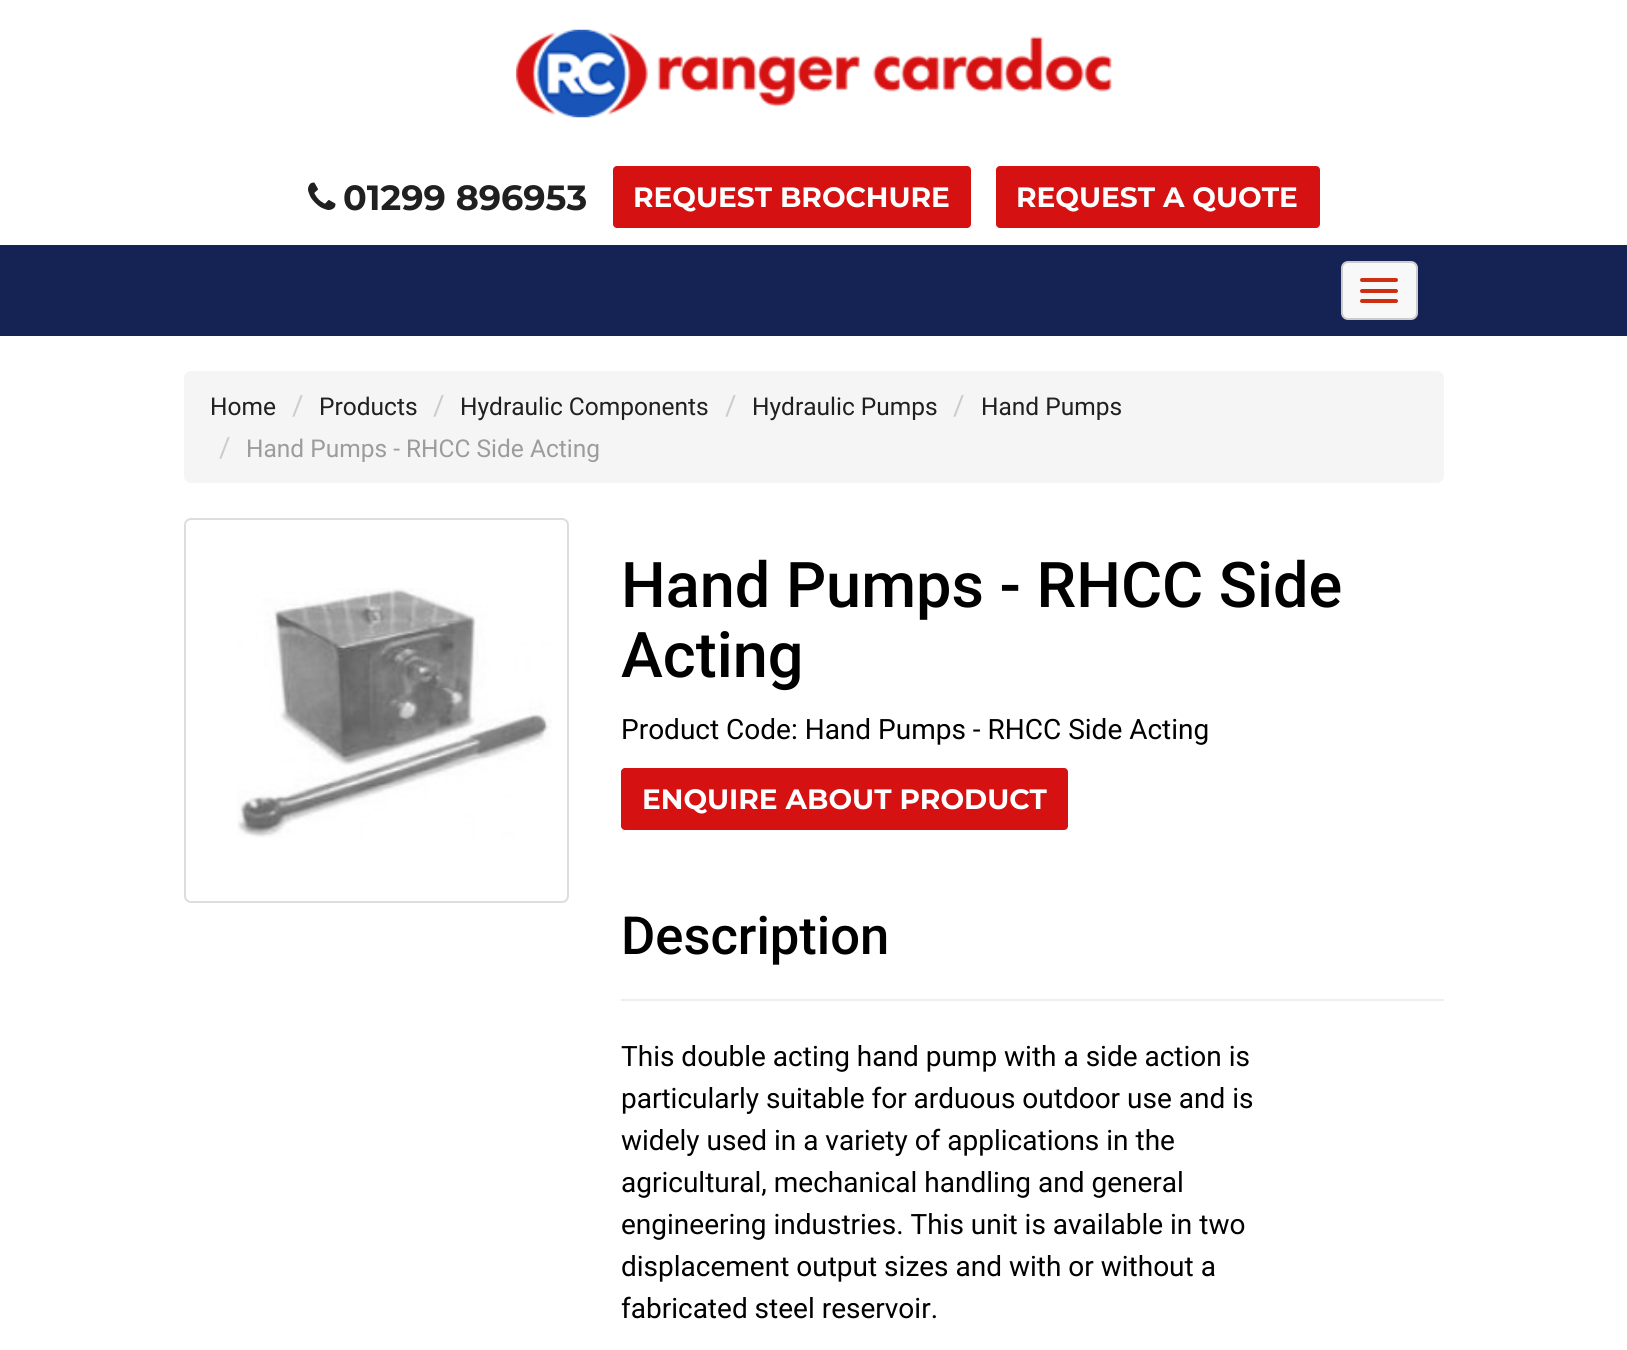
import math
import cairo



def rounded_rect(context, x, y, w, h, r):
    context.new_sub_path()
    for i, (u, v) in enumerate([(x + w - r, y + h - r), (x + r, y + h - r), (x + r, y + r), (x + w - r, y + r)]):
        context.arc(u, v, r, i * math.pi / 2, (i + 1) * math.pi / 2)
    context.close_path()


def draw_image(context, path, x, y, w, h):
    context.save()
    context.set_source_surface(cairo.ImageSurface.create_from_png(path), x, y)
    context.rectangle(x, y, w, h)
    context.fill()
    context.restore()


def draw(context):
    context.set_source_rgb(1, 1, 1)
    context.paint()
    draw_image(context, "images/1.png", 516, 29, 596, 89)
    draw_image(context, "images/2.png", 308, 182, 28, 28)
    context.set_source_rgb(213 / 255, 17 / 255, 18 / 255)
    rounded_rect(context, 613, 166, 358, 62, 4)
    context.fill()
    rounded_rect(context, 996, 166, 324, 62, 4)
    context.fill()
    context.set_source_rgb(20 / 255, 35 / 255, 84 / 255)
    context.rectangle(0, 245, 1627, 91)
    context.fill()
    context.set_source_rgb(248 / 255, 248 / 255, 248 / 255)
    rounded_rect(context, 1342, 262, 75, 57, 6)
    context.fill_preserve()
    context.set_source_rgb(204 / 255, 204 / 255, 204 / 255)
    context.stroke()
    context.set_source_rgb(204 / 255, 48 / 255, 16 / 255)
    rounded_rect(context, 1360, 278, 38, 4, 2)
    context.fill()
    rounded_rect(context, 1360, 289, 38, 4, 2)
    context.fill()
    rounded_rect(context, 1360, 299, 38, 4, 2)
    context.fill()
    context.set_source_rgb(245 / 255, 245 / 255, 245 / 255)
    rounded_rect(context, 184, 371, 1260, 112, 7)
    context.fill()
    rounded_rect(context, 185, 519, 383, 383, 6)
    context.set_source_rgb(221 / 255, 221 / 255, 221 / 255)
    context.stroke()
    draw_image(context, "images/3.png", 237, 588, 315, 250)
    context.set_source_rgb(213 / 255, 17 / 255, 18 / 255)
    rounded_rect(context, 621, 768, 447, 62, 4)
    context.fill()
    context.set_source_rgb(238 / 255, 238 / 255, 238 / 255)
    context.rectangle(621, 999, 823, 2)
    context.fill()
    context.select_font_face("Montserrat", cairo.FontSlant.NORMAL, cairo.FontWeight.BOLD)
    context.set_font_size(35)
    context.set_source_rgb(32 / 255, 32 / 255, 32 / 255)
    context.move_to(343, 210)
    context.show_text("01299 896953")
    context.set_font_size(28)
    context.set_source_rgb(1, 1, 1)
    context.move_to(633, 207)
    context.show_text("REQUEST BROCHURE")
    context.move_to(1016, 207)
    context.show_text("REQUEST A QUOTE")
    context.select_font_face("Roboto")
    context.set_font_size(24.5)
    context.set_source_rgb(32 / 255, 32 / 255, 32 / 255)
    context.move_to(210, 415)
    context.show_text("Home")
    context.set_font_size(28)
    context.set_source_rgb(204 / 255, 204 / 255, 204 / 255)
    context.move_to(292, 415)
    context.show_text("/")
    context.set_font_size(24.5)
    context.set_source_rgb(32 / 255, 32 / 255, 32 / 255)
    context.move_to(319, 415)
    context.show_text("Products")
    context.set_font_size(28)
    context.set_source_rgb(204 / 255, 204 / 255, 204 / 255)
    context.move_to(433, 415)
    context.show_text("/")
    context.set_font_size(24.5)
    context.set_source_rgb(32 / 255, 32 / 255, 32 / 255)
    context.move_to(460, 415)
    context.show_text("Hydraulic Components")
    context.set_font_size(28)
    context.set_source_rgb(204 / 255, 204 / 255, 204 / 255)
    context.move_to(725, 415)
    context.show_text("/")
    context.set_font_size(24.5)
    context.set_source_rgb(32 / 255, 32 / 255, 32 / 255)
    context.move_to(752, 415)
    context.show_text("Hydraulic Pumps")
    context.set_font_size(28)
    context.set_source_rgb(204 / 255, 204 / 255, 204 / 255)
    context.move_to(953, 415)
    context.show_text("/")
    context.set_font_size(24.5)
    context.set_source_rgb(32 / 255, 32 / 255, 32 / 255)
    context.move_to(981, 415)
    context.show_text("Hand Pumps")
    context.set_font_size(28)
    context.set_source_rgb(204 / 255, 204 / 255, 204 / 255)
    context.move_to(219, 457)
    context.show_text("/")
    context.set_font_size(24.5)
    context.set_source_rgb(156 / 255, 156 / 255, 156 / 255)
    context.move_to(246, 457)
    context.show_text("Hand Pumps - RHCC Side Acting")
    context.select_font_face("Roboto Medium")
    context.set_font_size(63)
    context.set_source_rgb(0, 0, 0)
    context.move_to(621, 607)
    context.show_text("Hand Pumps - RHCC Side")
    context.move_to(621, 677)
    context.show_text("Acting")
    context.select_font_face("Roboto")
    context.set_font_size(28)
    context.move_to(621, 739)
    context.show_text("Product Code: Hand Pumps - RHCC Side Acting")
    context.select_font_face("Montserrat", cairo.FontSlant.NORMAL, cairo.FontWeight.BOLD)
    context.set_source_rgb(1, 1, 1)
    context.move_to(642, 809)
    context.show_text("ENQUIRE ABOUT PRODUCT")
    context.select_font_face("Roboto Medium")
    context.set_font_size(52.5)
    context.set_source_rgb(0, 0, 0)
    context.move_to(621, 954)
    context.show_text("Description")
    context.select_font_face("Roboto")
    context.set_font_size(28)
    context.move_to(621, 1066)
    context.show_text("This double acting hand pump with a side action is")
    context.move_to(621, 1108)
    context.show_text("particularly suitable for arduous outdoor use and is")
    context.move_to(621, 1150)
    context.show_text("widely used in a variety of applications in the")
    context.move_to(621, 1192)
    context.show_text("agricultural, mechanical handling and general")
    context.move_to(621, 1234)
    context.show_text("engineering industries. This unit is available in two")
    context.move_to(621, 1276)
    context.show_text("displacement output sizes and with or without a")
    context.move_to(621, 1318)
    context.show_text("fabricated steel reservoir.")


surface = cairo.ImageSurface(cairo.Format.RGB24, 1627, 1350)
context = cairo.Context(surface)
options = cairo.FontOptions()
options.set_hint_metrics(cairo.HintMetrics.OFF)
options.set_hint_style(cairo.HintStyle.NONE)
context.set_font_options(options)
context.set_miter_limit(4)
draw(context)
surface.write_to_png("out.png")
